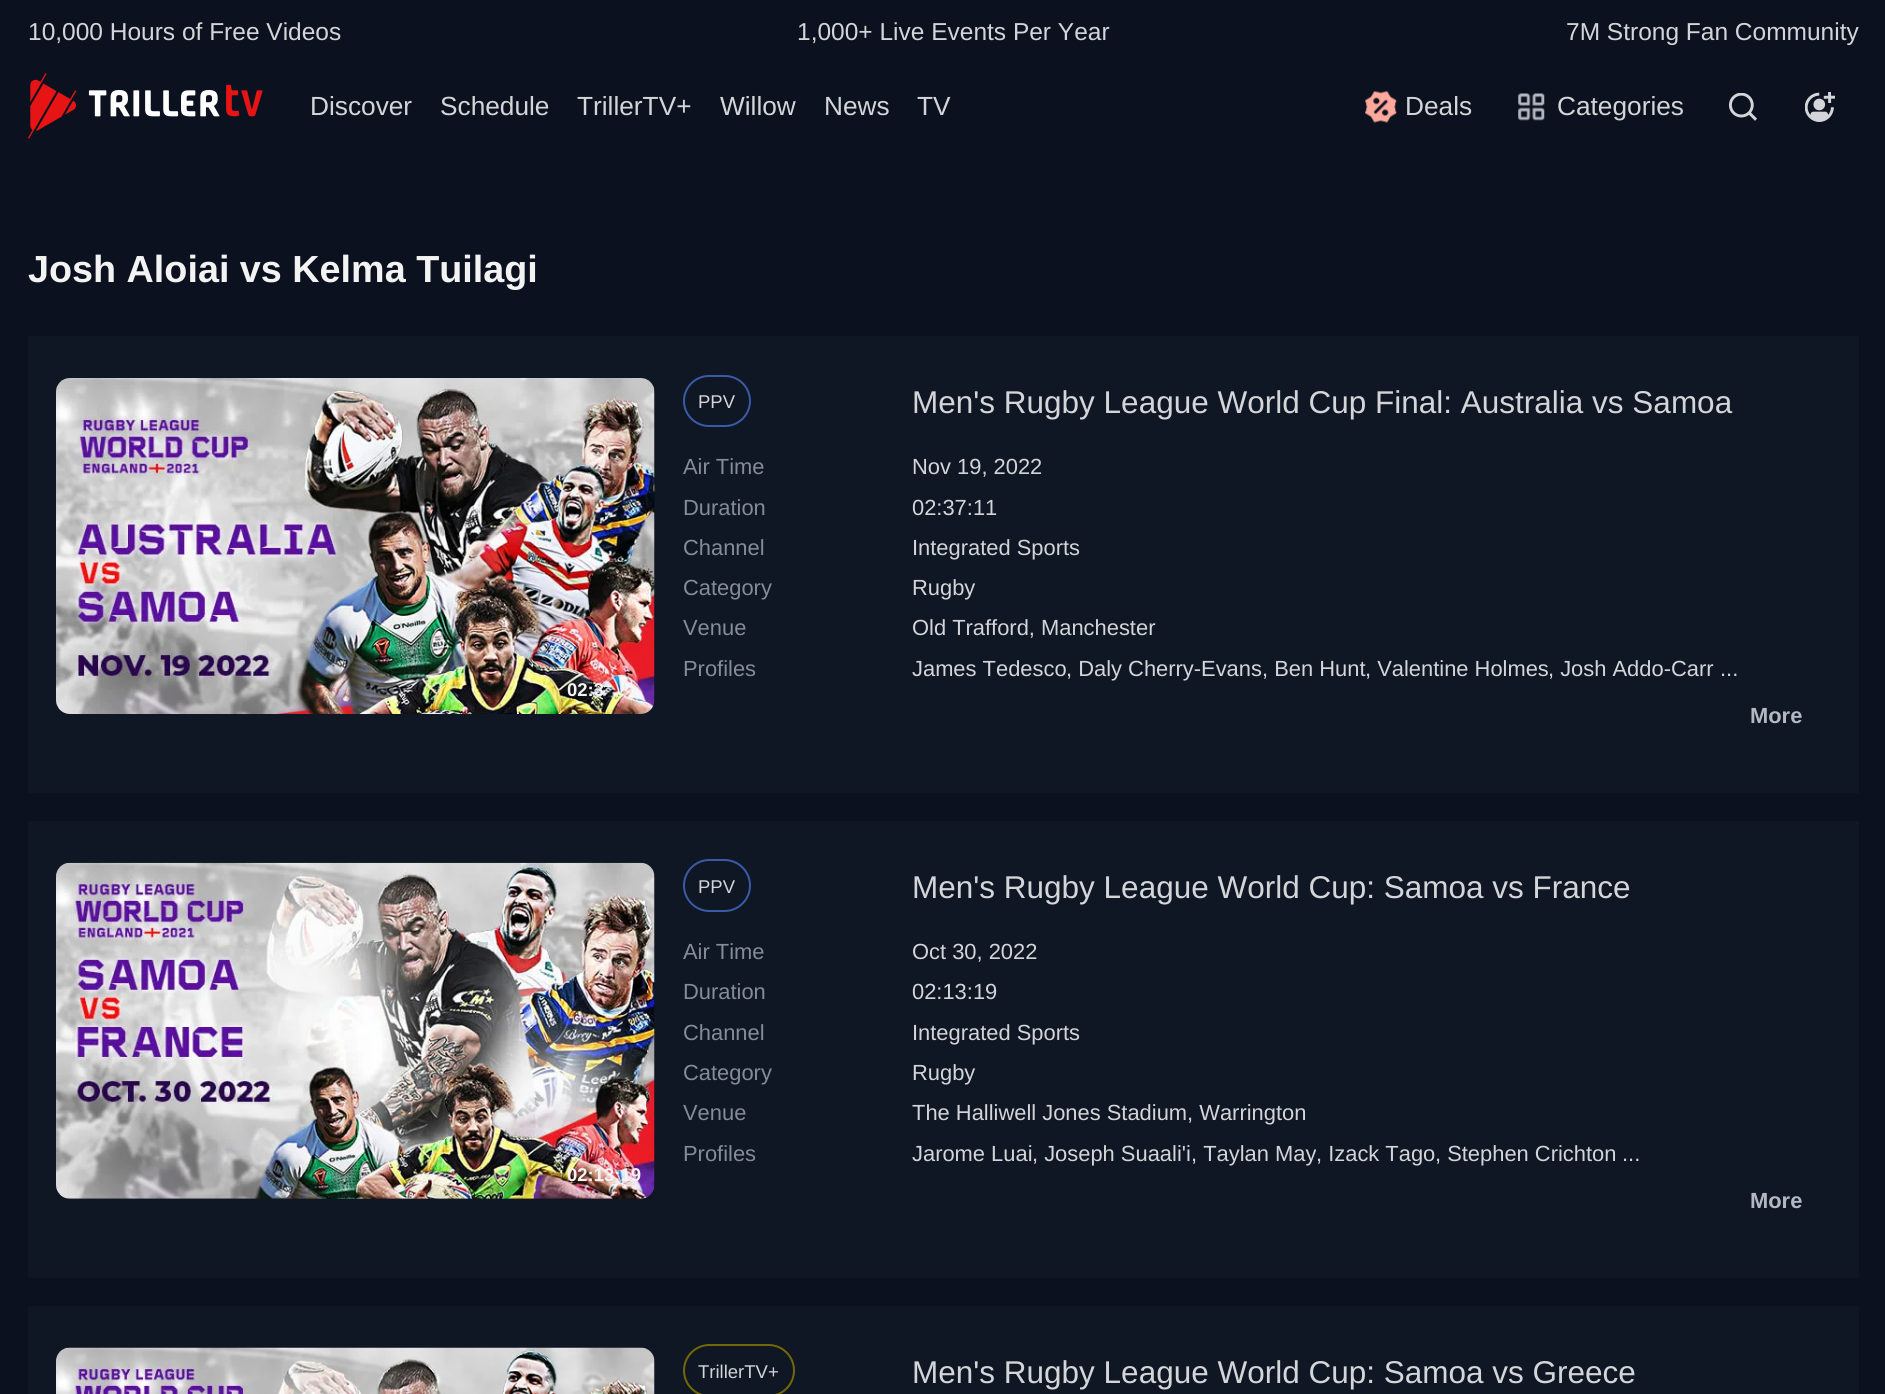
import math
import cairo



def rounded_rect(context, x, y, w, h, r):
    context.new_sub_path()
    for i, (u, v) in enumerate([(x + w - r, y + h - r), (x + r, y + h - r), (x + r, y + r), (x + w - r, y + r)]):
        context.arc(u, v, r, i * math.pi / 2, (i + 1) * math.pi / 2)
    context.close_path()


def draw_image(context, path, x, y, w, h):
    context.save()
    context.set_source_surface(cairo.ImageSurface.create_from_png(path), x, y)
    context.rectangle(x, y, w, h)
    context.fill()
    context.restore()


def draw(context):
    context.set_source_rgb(11 / 255, 17 / 255, 30 / 255)
    context.paint()
    draw_image(context, "images/1.png", 28, 73, 235, 66)
    draw_image(context, "images/2.png", 1365, 90, 32, 33)
    draw_image(context, "images/3.png", 1518, 93, 27, 28)
    draw_image(context, "images/4.png", 1729, 93, 28, 28)
    draw_image(context, "images/5.png", 1805, 92, 30, 30)
    context.set_source_rgb(15 / 255, 22 / 255, 36 / 255)
    context.rectangle(28, 336, 1831, 457)
    context.fill()
    draw_image(context, "images/6.png", 56, 378, 599, 336)
    rounded_rect(context, 684, 376, 66, 50, 25)
    context.set_source_rgb(57 / 255, 91 / 255, 167 / 255)
    context.stroke()
    context.set_source_rgb(15 / 255, 22 / 255, 36 / 255)
    context.rectangle(28, 821, 1831, 457)
    context.fill()
    draw_image(context, "images/7.png", 56, 862, 599, 337)
    rounded_rect(context, 684, 860, 66, 51, 25.5)
    context.set_source_rgb(57 / 255, 91 / 255, 167 / 255)
    context.stroke()
    context.set_source_rgb(15 / 255, 22 / 255, 36 / 255)
    context.rectangle(28, 1306, 1831, 88)
    context.fill()
    draw_image(context, "images/8.png", 56, 1347, 599, 47)
    rounded_rect(context, 684, 1345, 110, 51, 25.5)
    context.set_source_rgb(115 / 255, 104 / 255, 5 / 255)
    context.stroke()
    context.select_font_face("Liberation Sans")
    context.set_font_size(24.5)
    context.set_source_rgb(211 / 255, 213 / 255, 216 / 255)
    context.move_to(28, 40)
    context.show_text("10,000 Hours of Free Videos")
    context.move_to(797, 40)
    context.show_text("1,000+ Live Events Per Year")
    context.move_to(1566, 40)
    context.show_text("7M Strong Fan Community")
    context.set_font_size(26.25)
    context.move_to(310, 115)
    context.show_text("Discover")
    context.move_to(440, 115)
    context.show_text("Schedule")
    context.move_to(577, 115)
    context.show_text("TrillerTV+")
    context.move_to(720, 115)
    context.show_text("Willow")
    context.move_to(824, 115)
    context.show_text("News")
    context.move_to(917, 115)
    context.show_text("TV")
    context.move_to(1405, 115)
    context.show_text("Deals")
    context.move_to(1557, 115)
    context.show_text("Categories")
    context.select_font_face("Liberation Sans", cairo.FontSlant.NORMAL, cairo.FontWeight.BOLD)
    context.set_font_size(37.75)
    context.set_source_rgb(243 / 255, 243 / 255, 243 / 255)
    context.move_to(28, 282)
    context.show_text("Josh Aloiai vs Kelma Tuilagi")
    context.set_font_size(18.5)
    context.move_to(567, 696)
    context.show_text("02:3")
    context.select_font_face("Liberation Sans")
    context.set_source_rgb(211 / 255, 213 / 255, 216 / 255)
    context.move_to(698, 408)
    context.show_text("PPV")
    context.set_font_size(31.5)
    context.move_to(912, 413)
    context.show_text("Men's Rugby League World Cup Final: Australia vs Samoa")
    context.set_font_size(21.9)
    context.set_source_rgb(132 / 255, 139 / 255, 154 / 255)
    context.move_to(683, 474)
    context.show_text("Air Time")
    context.set_source_rgb(211 / 255, 213 / 255, 216 / 255)
    context.move_to(912, 474)
    context.show_text("Nov 19, 2022")
    context.set_source_rgb(132 / 255, 139 / 255, 154 / 255)
    context.move_to(683, 515)
    context.show_text("Duration")
    context.set_source_rgb(211 / 255, 213 / 255, 216 / 255)
    context.move_to(912, 515)
    context.show_text("02:37:11")
    context.set_source_rgb(132 / 255, 139 / 255, 154 / 255)
    context.move_to(683, 555)
    context.show_text("Channel")
    context.set_source_rgb(211 / 255, 213 / 255, 216 / 255)
    context.move_to(912, 555)
    context.show_text("Integrated Sports")
    context.set_source_rgb(132 / 255, 139 / 255, 154 / 255)
    context.move_to(683, 595)
    context.show_text("Category")
    context.set_source_rgb(211 / 255, 213 / 255, 216 / 255)
    context.move_to(912, 595)
    context.show_text("Rugby")
    context.set_source_rgb(132 / 255, 139 / 255, 154 / 255)
    context.move_to(683, 635)
    context.show_text("Venue")
    context.set_source_rgb(211 / 255, 213 / 255, 216 / 255)
    context.move_to(912, 635)
    context.show_text("Old Trafford, Manchester")
    context.set_source_rgb(132 / 255, 139 / 255, 154 / 255)
    context.move_to(683, 676)
    context.show_text("Profiles")
    context.set_source_rgb(211 / 255, 213 / 255, 216 / 255)
    context.move_to(912, 676)
    context.show_text("James Tedesco")
    context.move_to(1066, 676)
    context.show_text(", Daly Cherry-Evans")
    context.move_to(1262, 676)
    context.show_text(", Ben Hunt")
    context.move_to(1365, 676)
    context.show_text(", Valentine Holmes")
    context.move_to(1548, 676)
    context.show_text(", Josh Addo-Carr")
    context.move_to(1720, 676)
    context.show_text("...")
    context.select_font_face("Liberation Sans", cairo.FontSlant.NORMAL, cairo.FontWeight.BOLD)
    context.set_source_rgb(180 / 255, 184 / 255, 193 / 255)
    context.move_to(1750, 723)
    context.show_text("More")
    context.set_font_size(18.5)
    context.set_source_rgb(243 / 255, 243 / 255, 243 / 255)
    context.move_to(567, 1181)
    context.show_text("02:13:19")
    context.select_font_face("Liberation Sans")
    context.set_source_rgb(211 / 255, 213 / 255, 216 / 255)
    context.move_to(698, 893)
    context.show_text("PPV")
    context.set_font_size(31.5)
    context.move_to(912, 898)
    context.show_text("Men's Rugby League World Cup: Samoa vs France")
    context.set_font_size(21.9)
    context.set_source_rgb(132 / 255, 139 / 255, 154 / 255)
    context.move_to(683, 959)
    context.show_text("Air Time")
    context.set_source_rgb(211 / 255, 213 / 255, 216 / 255)
    context.move_to(912, 959)
    context.show_text("Oct 30, 2022")
    context.set_source_rgb(132 / 255, 139 / 255, 154 / 255)
    context.move_to(683, 999)
    context.show_text("Duration")
    context.set_source_rgb(211 / 255, 213 / 255, 216 / 255)
    context.move_to(912, 999)
    context.show_text("02:13:19")
    context.set_source_rgb(132 / 255, 139 / 255, 154 / 255)
    context.move_to(683, 1040)
    context.show_text("Channel")
    context.set_source_rgb(211 / 255, 213 / 255, 216 / 255)
    context.move_to(912, 1040)
    context.show_text("Integrated Sports")
    context.set_source_rgb(132 / 255, 139 / 255, 154 / 255)
    context.move_to(683, 1080)
    context.show_text("Category")
    context.set_source_rgb(211 / 255, 213 / 255, 216 / 255)
    context.move_to(912, 1080)
    context.show_text("Rugby")
    context.set_source_rgb(132 / 255, 139 / 255, 154 / 255)
    context.move_to(683, 1120)
    context.show_text("Venue")
    context.set_source_rgb(211 / 255, 213 / 255, 216 / 255)
    context.move_to(912, 1120)
    context.show_text("The Halliwell Jones Stadium, Warrington")
    context.set_source_rgb(132 / 255, 139 / 255, 154 / 255)
    context.move_to(683, 1161)
    context.show_text("Profiles")
    context.set_source_rgb(211 / 255, 213 / 255, 216 / 255)
    context.move_to(912, 1161)
    context.show_text("Jarome Luai")
    context.move_to(1032, 1161)
    context.show_text(", Joseph Suaali'i")
    context.move_to(1191, 1161)
    context.show_text(", Taylan May")
    context.move_to(1316, 1161)
    context.show_text(", Izack Tago")
    context.move_to(1435, 1161)
    context.show_text(", Stephen Crichton")
    context.move_to(1622, 1161)
    context.show_text("...")
    context.select_font_face("Liberation Sans", cairo.FontSlant.NORMAL, cairo.FontWeight.BOLD)
    context.set_source_rgb(180 / 255, 184 / 255, 193 / 255)
    context.move_to(1750, 1208)
    context.show_text("More")
    context.select_font_face("Liberation Sans")
    context.set_font_size(18.5)
    context.set_source_rgb(211 / 255, 213 / 255, 216 / 255)
    context.move_to(698, 1378)
    context.show_text("TrillerTV+")
    context.set_font_size(31.5)
    context.move_to(912, 1383)
    context.show_text("Men's Rugby League World Cup: Samoa vs Greece")


surface = cairo.ImageSurface(cairo.Format.RGB24, 1885, 1394)
context = cairo.Context(surface)
options = cairo.FontOptions()
options.set_hint_metrics(cairo.HintMetrics.OFF)
options.set_hint_style(cairo.HintStyle.NONE)
context.set_font_options(options)
context.set_miter_limit(4)
draw(context)
surface.write_to_png("out.png")
